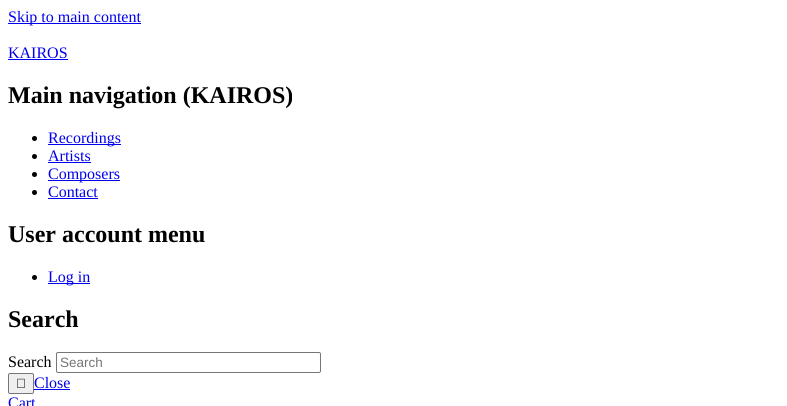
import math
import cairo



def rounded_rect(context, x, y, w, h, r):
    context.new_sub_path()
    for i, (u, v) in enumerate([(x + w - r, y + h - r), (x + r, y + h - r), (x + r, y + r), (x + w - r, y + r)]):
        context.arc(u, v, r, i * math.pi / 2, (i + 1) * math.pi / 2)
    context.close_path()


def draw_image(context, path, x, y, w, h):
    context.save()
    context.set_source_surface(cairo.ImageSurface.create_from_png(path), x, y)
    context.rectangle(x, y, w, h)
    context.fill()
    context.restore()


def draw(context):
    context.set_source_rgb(1, 1, 1)
    context.paint()
    context.set_source_rgb(0, 0, 238 / 255)
    context.rectangle(8, 23, 133, 1)
    context.fill()
    context.rectangle(8, 59, 60, 1)
    context.fill()
    context.set_source_rgb(0, 0, 0)
    context.arc(34.5, 138.5, 2.5, 0, 2 * math.pi)
    context.fill()
    context.set_source_rgb(0, 0, 238 / 255)
    context.rectangle(48, 144, 73, 1)
    context.fill()
    context.set_source_rgb(0, 0, 0)
    context.arc(34.5, 156.5, 2.5, 0, 2 * math.pi)
    context.fill()
    context.set_source_rgb(0, 0, 238 / 255)
    context.rectangle(48, 162, 43, 1)
    context.fill()
    context.set_source_rgb(0, 0, 0)
    context.arc(34.5, 174.5, 2.5, 0, 2 * math.pi)
    context.fill()
    context.set_source_rgb(0, 0, 238 / 255)
    context.rectangle(48, 180, 72, 1)
    context.fill()
    context.set_source_rgb(0, 0, 0)
    context.arc(34.5, 192.5, 2.5, 0, 2 * math.pi)
    context.fill()
    context.set_source_rgb(0, 0, 238 / 255)
    context.rectangle(48, 198, 50, 1)
    context.fill()
    context.set_source_rgb(0, 0, 0)
    context.arc(34.5, 277.5, 2.5, 0, 2 * math.pi)
    context.fill()
    context.set_source_rgb(0, 0, 238 / 255)
    context.rectangle(48, 283, 42, 1)
    context.fill()
    rounded_rect(context, 56.5, 352.5, 264, 20, 1.5)
    context.set_source_rgb(118 / 255, 118 / 255, 118 / 255)
    context.set_line_width(1)
    context.stroke()
    context.set_source_rgb(239 / 255, 239 / 255, 239 / 255)
    rounded_rect(context, 8.5, 373.5, 25, 20, 1.5)
    context.fill_preserve()
    context.set_source_rgb(118 / 255, 118 / 255, 118 / 255)
    context.stroke()
    draw_image(context, "images/1.png", 17, 378, 8, 10)
    context.set_source_rgb(0, 0, 238 / 255)
    context.rectangle(34, 389, 36, 1)
    context.fill()
    context.select_font_face("Liberation Serif")
    context.set_font_size(16)
    context.move_to(8, 22)
    context.show_text("Skip to main content")
    context.move_to(8, 58)
    context.show_text("KAIROS")
    context.select_font_face("Liberation Serif", cairo.FontSlant.NORMAL, cairo.FontWeight.BOLD)
    context.set_font_size(24)
    context.set_source_rgb(0, 0, 0)
    context.move_to(8, 103)
    context.show_text("Main navigation (KAIROS)")
    context.select_font_face("Liberation Serif")
    context.set_font_size(16)
    context.set_source_rgb(0, 0, 238 / 255)
    context.move_to(48, 143)
    context.show_text("Recordings")
    context.move_to(48, 161)
    context.show_text("Artists")
    context.move_to(48, 179)
    context.show_text("Composers")
    context.move_to(48, 197)
    context.show_text("Contact")
    context.select_font_face("Liberation Serif", cairo.FontSlant.NORMAL, cairo.FontWeight.BOLD)
    context.set_font_size(24)
    context.set_source_rgb(0, 0, 0)
    context.move_to(8, 242)
    context.show_text("User account menu")
    context.select_font_face("Liberation Serif")
    context.set_font_size(16)
    context.set_source_rgb(0, 0, 238 / 255)
    context.move_to(48, 282)
    context.show_text("Log in")
    context.select_font_face("Liberation Serif", cairo.FontSlant.NORMAL, cairo.FontWeight.BOLD)
    context.set_font_size(24)
    context.set_source_rgb(0, 0, 0)
    context.move_to(8, 327)
    context.show_text("Search")
    context.select_font_face("Liberation Serif")
    context.set_font_size(16)
    context.move_to(8, 367)
    context.show_text("Search")
    context.select_font_face("Liberation Sans")
    context.set_font_size(13.5)
    context.set_source_rgb(117 / 255, 117 / 255, 117 / 255)
    context.move_to(60, 367)
    context.show_text("Search")
    context.select_font_face("Liberation Serif")
    context.set_font_size(16)
    context.set_source_rgb(0, 0, 238 / 255)
    context.move_to(34, 388)
    context.show_text("Close")
    context.move_to(8, 408)
    context.show_text("Cart")


surface = cairo.ImageSurface(cairo.Format.RGB24, 787, 406)
context = cairo.Context(surface)
options = cairo.FontOptions()
options.set_hint_metrics(cairo.HintMetrics.OFF)
options.set_hint_style(cairo.HintStyle.NONE)
context.set_font_options(options)
context.set_miter_limit(4)
draw(context)
surface.write_to_png("out.png")
